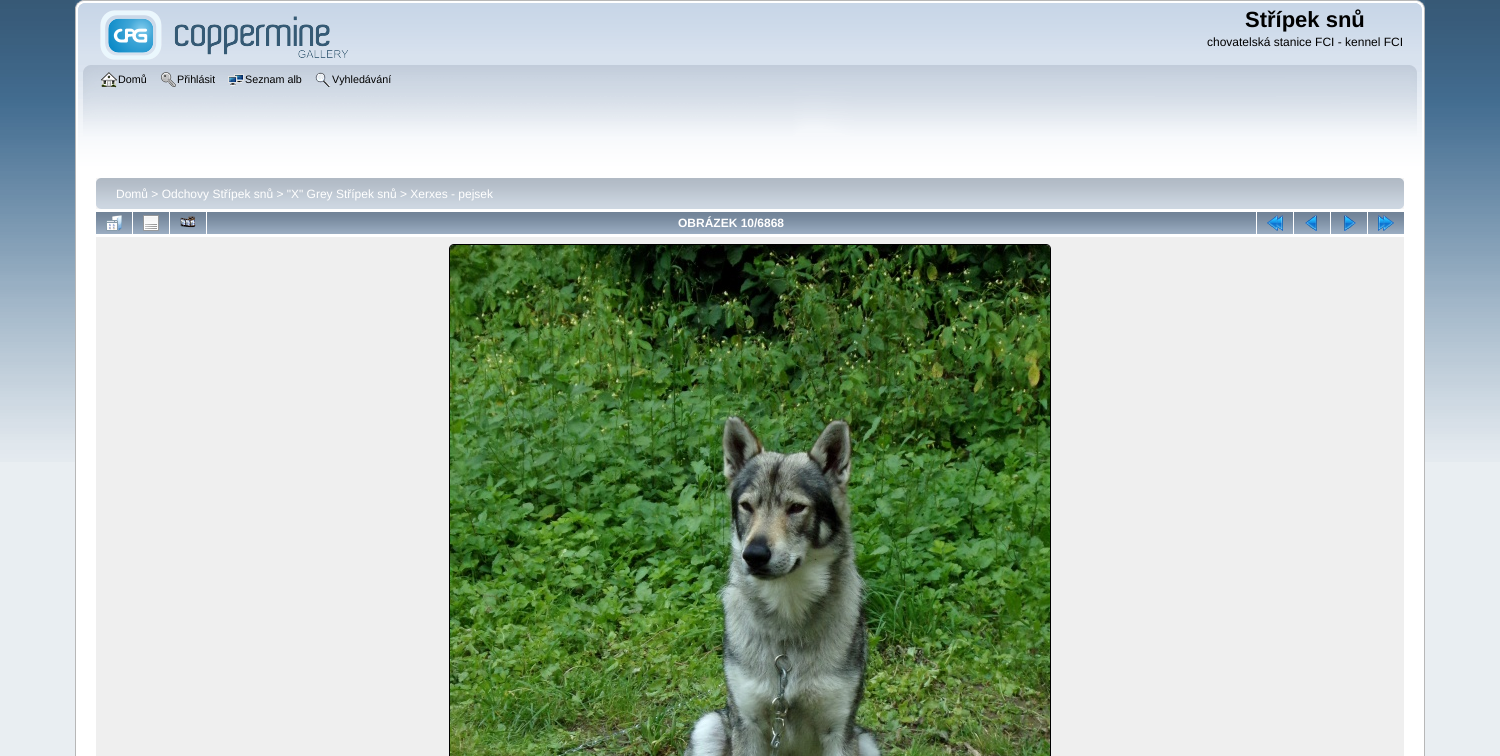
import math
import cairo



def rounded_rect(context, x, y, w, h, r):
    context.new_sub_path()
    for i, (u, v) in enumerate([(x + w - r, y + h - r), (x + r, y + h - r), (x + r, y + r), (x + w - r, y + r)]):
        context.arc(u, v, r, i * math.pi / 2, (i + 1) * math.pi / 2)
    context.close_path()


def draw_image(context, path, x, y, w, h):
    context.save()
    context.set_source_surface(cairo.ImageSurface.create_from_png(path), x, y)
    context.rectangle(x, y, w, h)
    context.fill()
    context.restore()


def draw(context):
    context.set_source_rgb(233 / 255, 238 / 255, 242 / 255)
    context.paint()
    draw_image(context, "images/1.png", 0, 0, 1500, 462)
    draw_image(context, "images/2.png", 75, 0, 1342, 65)
    draw_image(context, "images/3.png", 1417, 0, 8, 65)
    draw_image(context, "images/4.png", 100, 10, 248, 50)
    draw_image(context, "images/5.png", 75, 65, 1335, 110)
    draw_image(context, "images/6.png", 1410, 65, 15, 110)
    draw_image(context, "images/7.png", 101, 72, 16, 16)
    draw_image(context, "images/8.png", 161, 72, 15, 15)
    draw_image(context, "images/9.png", 228, 74, 16, 12)
    draw_image(context, "images/10.png", 315, 72, 16, 15)
    context.set_source_rgb(1, 1, 1)
    context.rectangle(76, 175, 1348, 581)
    context.fill()
    context.set_source_rgb(183 / 255, 183 / 255, 183 / 255)
    context.rectangle(75, 175, 1, 581)
    context.fill()
    context.rectangle(1424, 175, 1, 581)
    context.fill()
    draw_image(context, "images/11.png", 96, 178, 1303, 31)
    draw_image(context, "images/12.png", 1399, 178, 5, 31)
    draw_image(context, "images/13.png", 96, 212, 36, 22)
    draw_image(context, "images/14.png", 106, 215, 16, 16)
    draw_image(context, "images/13.png", 133, 212, 36, 22)
    draw_image(context, "images/15.png", 143, 215, 16, 16)
    draw_image(context, "images/13.png", 170, 212, 36, 22)
    draw_image(context, "images/16.png", 180, 216, 16, 12)
    draw_image(context, "images/17.png", 207, 212, 1049, 22)
    draw_image(context, "images/13.png", 1257, 212, 36, 22)
    draw_image(context, "images/18.png", 1267, 215, 16, 16)
    draw_image(context, "images/13.png", 1294, 212, 36, 22)
    draw_image(context, "images/19.png", 1305, 215, 12, 16)
    draw_image(context, "images/13.png", 1331, 212, 36, 22)
    draw_image(context, "images/20.png", 1344, 215, 12, 16)
    draw_image(context, "images/13.png", 1368, 212, 36, 22)
    draw_image(context, "images/21.png", 1378, 215, 16, 16)
    context.set_source_rgb(239 / 255, 239 / 255, 239 / 255)
    context.rectangle(96, 237, 1308, 519)
    context.fill()
    rounded_rect(context, 449.5, 244.5, 601, 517, 4.5)
    context.set_source_rgb(0, 0, 0)
    context.set_line_width(1)
    context.stroke()
    draw_image(context, "images/22.png", 450, 245, 600, 511)
    context.select_font_face("Liberation Sans", cairo.FontSlant.NORMAL, cairo.FontWeight.BOLD)
    context.set_font_size(22)
    context.move_to(1245, 27)
    context.show_text("Střípek snů")
    context.select_font_face("Liberation Sans")
    context.set_font_size(12)
    context.move_to(1207, 46)
    context.show_text("chovatelská stanice FCI - kennel FCI")
    context.set_font_size(10.75)
    context.move_to(118, 83)
    context.show_text("Domů")
    context.move_to(177, 83)
    context.show_text("Přihlásit")
    context.move_to(245, 83)
    context.show_text("Seznam alb")
    context.move_to(332, 83)
    context.show_text("Vyhledávání")
    context.set_font_size(12)
    context.set_source_rgb(1, 1, 1)
    context.move_to(116, 198)
    context.show_text("Domů > Odchovy Střípek snů > \"X\" Grey Střípek snů > Xerxes - pejsek")
    context.select_font_face("Liberation Sans", cairo.FontSlant.NORMAL, cairo.FontWeight.BOLD)
    context.move_to(678, 227)
    context.show_text("OBRÁZEK 10/6868")


surface = cairo.ImageSurface(cairo.Format.RGB24, 1500, 756)
context = cairo.Context(surface)
options = cairo.FontOptions()
options.set_hint_metrics(cairo.HintMetrics.OFF)
options.set_hint_style(cairo.HintStyle.NONE)
context.set_font_options(options)
context.set_miter_limit(4)
draw(context)
surface.write_to_png("out.png")
